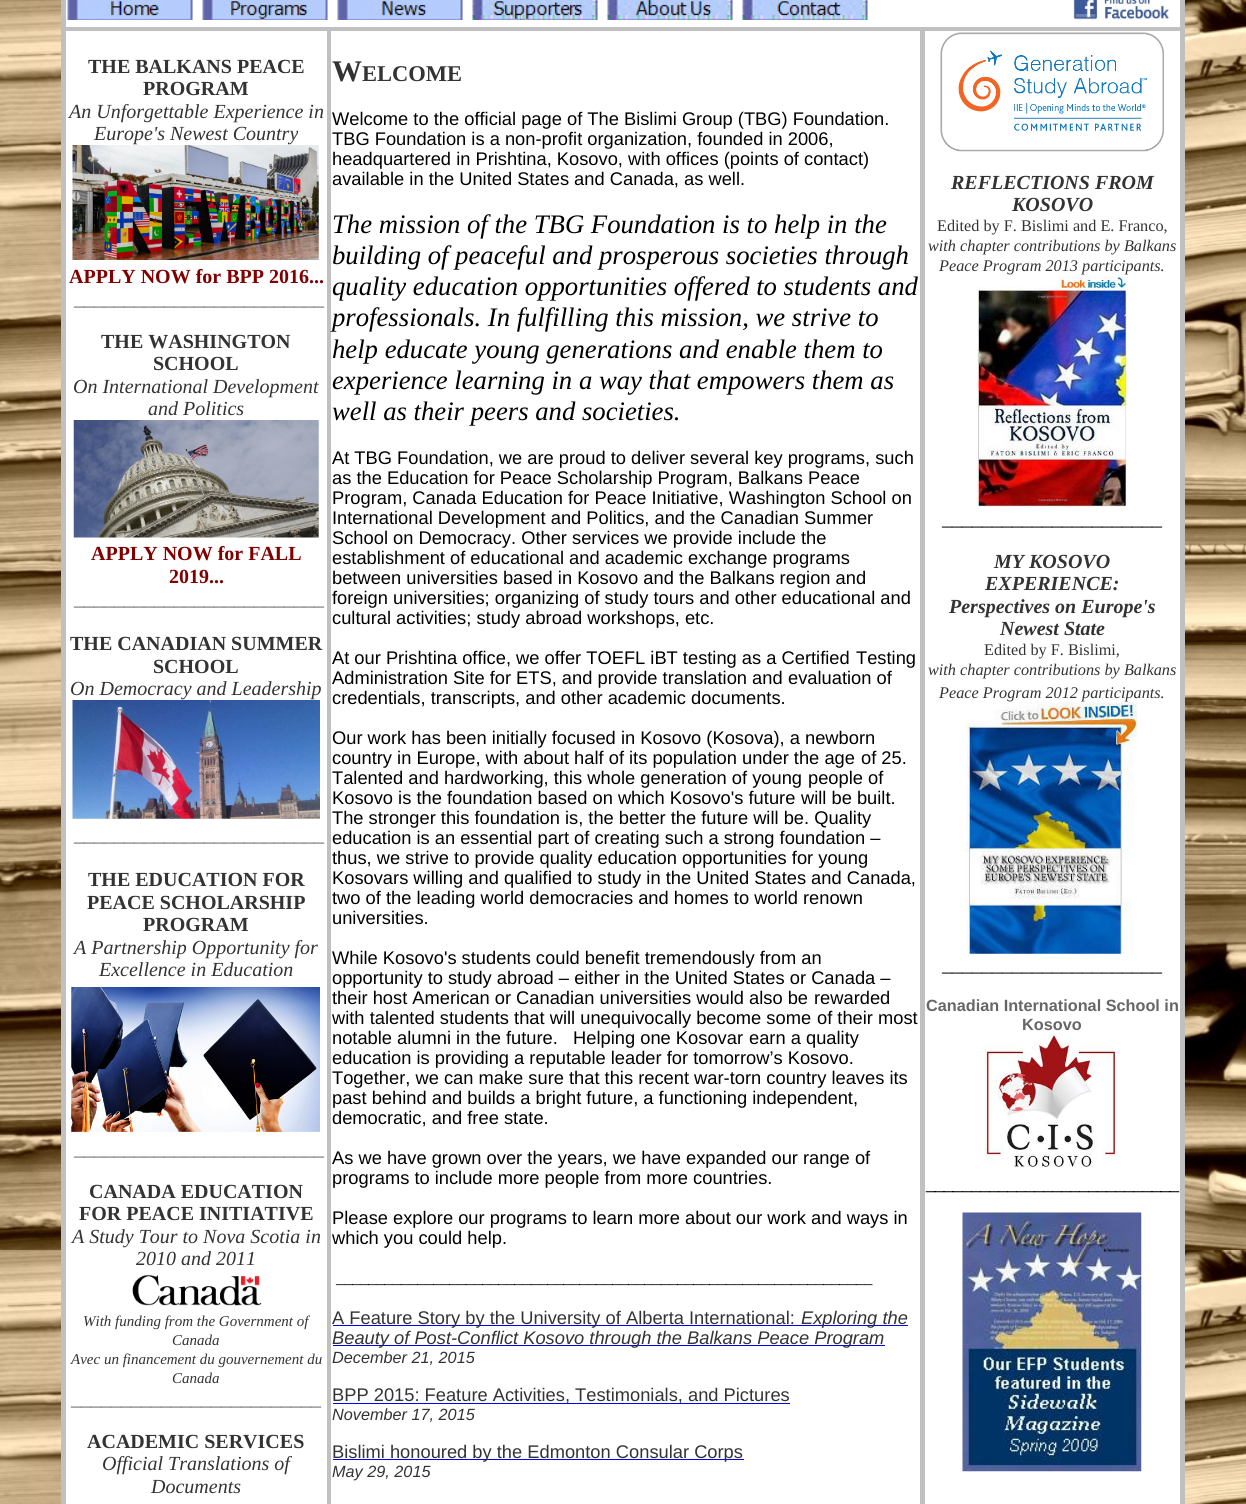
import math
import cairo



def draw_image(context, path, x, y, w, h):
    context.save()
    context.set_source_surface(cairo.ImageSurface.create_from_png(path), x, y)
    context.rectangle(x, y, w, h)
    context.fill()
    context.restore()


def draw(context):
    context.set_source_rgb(1, 1, 1)
    context.paint()
    draw_image(context, "images/1.png", 0, 0, 1246, 1504)
    context.set_source_rgb(192 / 255, 192 / 255, 192 / 255)
    context.rectangle(61, 0, 1124, 1504)
    context.fill()
    context.set_source_rgb(1, 1, 1)
    context.rectangle(66, 0, 1114, 27)
    context.fill()
    draw_image(context, "images/2.png", 67, 0, 126, 20)
    draw_image(context, "images/3.png", 202, 0, 126, 20)
    draw_image(context, "images/4.png", 337, 0, 126, 20)
    draw_image(context, "images/5.png", 472, 0, 126, 20)
    draw_image(context, "images/6.png", 607, 0, 126, 20)
    draw_image(context, "images/7.png", 742, 0, 126, 20)
    draw_image(context, "images/8.png", 1073, 0, 97, 20)
    context.rectangle(66, 31, 261, 1473)
    context.fill()
    draw_image(context, "images/9.png", 72, 145, 247, 115)
    draw_image(context, "images/10.png", 73, 420, 246, 118)
    draw_image(context, "images/11.png", 72, 700, 248, 119)
    draw_image(context, "images/12.png", 71, 987, 249, 147)
    draw_image(context, "images/13.png", 132, 1274, 130, 32)
    context.rectangle(331, 31, 589, 1473)
    context.fill()
    context.set_source_rgb(0, 0, 238 / 255)
    context.rectangle(333, 1325, 575, 1)
    context.fill()
    context.rectangle(333, 1345, 552, 1)
    context.fill()
    context.rectangle(333, 1403, 457, 1)
    context.fill()
    context.rectangle(333, 1459, 411, 1)
    context.fill()
    context.set_source_rgb(1, 1, 1)
    context.rectangle(925, 31, 255, 1473)
    context.fill()
    draw_image(context, "images/14.png", 940, 32, 224, 120)
    draw_image(context, "images/15.png", 976, 276, 152, 232)
    draw_image(context, "images/16.png", 966, 702, 172, 252)
    draw_image(context, "images/17.png", 985, 1033, 131, 134)
    draw_image(context, "images/18.png", 962, 1212, 180, 260)
    context.select_font_face("Liberation Serif", cairo.FontSlant.NORMAL, cairo.FontWeight.BOLD)
    context.set_font_size(20)
    context.set_source_rgb(51 / 255, 51 / 255, 51 / 255)
    context.move_to(88, 73)
    context.show_text("THE BALKANS PEACE")
    context.move_to(143, 95)
    context.show_text("PROGRAM")
    context.select_font_face("Liberation Serif", cairo.FontSlant.ITALIC)
    context.move_to(69, 118)
    context.show_text("An Unforgettable Experience in")
    context.move_to(94, 140)
    context.show_text("Europe's Newest Country")
    context.select_font_face("Liberation Serif", cairo.FontSlant.NORMAL, cairo.FontWeight.BOLD)
    context.set_source_rgb(128 / 255, 0, 0)
    context.move_to(69, 283)
    context.show_text("APPLY NOW for BPP 2016...")
    context.select_font_face("Liberation Serif")
    context.set_source_rgb(102 / 255, 102 / 255, 102 / 255)
    context.move_to(74, 305)
    context.show_text("_________________________")
    context.select_font_face("Liberation Serif", cairo.FontSlant.NORMAL, cairo.FontWeight.BOLD)
    context.set_source_rgb(51 / 255, 51 / 255, 51 / 255)
    context.move_to(101, 348)
    context.show_text("THE WASHINGTON")
    context.move_to(153, 370)
    context.show_text("SCHOOL")
    context.select_font_face("Liberation Serif", cairo.FontSlant.ITALIC)
    context.move_to(73, 393)
    context.show_text("On International Development")
    context.move_to(148, 415)
    context.show_text("and Politics")
    context.select_font_face("Liberation Serif", cairo.FontSlant.NORMAL, cairo.FontWeight.BOLD)
    context.set_source_rgb(128 / 255, 0, 0)
    context.move_to(91, 560)
    context.show_text("APPLY NOW for FALL")
    context.move_to(169, 583)
    context.show_text("2019...")
    context.select_font_face("Liberation Serif")
    context.set_source_rgb(102 / 255, 102 / 255, 102 / 255)
    context.move_to(74, 605)
    context.show_text("_________________________")
    context.select_font_face("Liberation Serif", cairo.FontSlant.NORMAL, cairo.FontWeight.BOLD)
    context.set_source_rgb(51 / 255, 51 / 255, 51 / 255)
    context.move_to(70, 650)
    context.show_text("THE CANADIAN SUMMER")
    context.move_to(153, 673)
    context.show_text("SCHOOL")
    context.select_font_face("Liberation Serif", cairo.FontSlant.ITALIC)
    context.move_to(70, 695)
    context.show_text("On Democracy and Leadership")
    context.select_font_face("Liberation Serif")
    context.set_source_rgb(102 / 255, 102 / 255, 102 / 255)
    context.move_to(74, 841)
    context.show_text("_________________________")
    context.select_font_face("Liberation Serif", cairo.FontSlant.NORMAL, cairo.FontWeight.BOLD)
    context.set_source_rgb(51 / 255, 51 / 255, 51 / 255)
    context.move_to(88, 886)
    context.show_text("THE EDUCATION FOR")
    context.move_to(87, 909)
    context.show_text("PEACE SCHOLARSHIP")
    context.move_to(143, 931)
    context.show_text("PROGRAM")
    context.select_font_face("Liberation Serif", cairo.FontSlant.ITALIC)
    context.move_to(74, 954)
    context.show_text("A Partnership Opportunity for")
    context.move_to(99, 976)
    context.show_text("Excellence in Education")
    context.select_font_face("Liberation Serif")
    context.set_source_rgb(102 / 255, 102 / 255, 102 / 255)
    context.move_to(74, 1155)
    context.show_text("_________________________")
    context.select_font_face("Liberation Serif", cairo.FontSlant.NORMAL, cairo.FontWeight.BOLD)
    context.set_source_rgb(51 / 255, 51 / 255, 51 / 255)
    context.move_to(89, 1198)
    context.show_text("CANADA EDUCATION")
    context.move_to(79, 1220)
    context.show_text("FOR PEACE INITIATIVE")
    context.select_font_face("Liberation Serif", cairo.FontSlant.ITALIC)
    context.move_to(72, 1243)
    context.show_text("A Study Tour to Nova Scotia in")
    context.move_to(136, 1265)
    context.show_text("2010 and 2011")
    context.set_font_size(15)
    context.move_to(83, 1326)
    context.show_text("With funding from the Government of")
    context.move_to(172, 1345)
    context.show_text("Canada")
    context.move_to(71, 1364)
    context.show_text("Avec un financement du gouvernement du")
    context.move_to(172, 1383)
    context.show_text("Canada")
    context.select_font_face("Liberation Serif")
    context.set_font_size(20)
    context.set_source_rgb(102 / 255, 102 / 255, 102 / 255)
    context.move_to(71, 1405)
    context.show_text("_________________________")
    context.select_font_face("Liberation Serif", cairo.FontSlant.NORMAL, cairo.FontWeight.BOLD)
    context.set_source_rgb(51 / 255, 51 / 255, 51 / 255)
    context.move_to(87, 1448)
    context.show_text("ACADEMIC SERVICES")
    context.select_font_face("Liberation Serif", cairo.FontSlant.ITALIC)
    context.move_to(102, 1470)
    context.show_text("Official Translations of")
    context.move_to(151, 1493)
    context.show_text("Documents")
    context.select_font_face("Liberation Serif", cairo.FontSlant.NORMAL, cairo.FontWeight.BOLD)
    context.set_font_size(30)
    context.move_to(332, 81)
    context.show_text("W")
    context.set_font_size(22.5)
    context.move_to(362, 81)
    context.show_text("ELCOME")
    context.select_font_face("Liberation Sans")
    context.set_font_size(18.3)
    context.set_source_rgb(0, 0, 0)
    context.move_to(332, 125)
    context.show_text("Welcome to the official page of The Bislimi Group (TBG) Foundation.")
    context.move_to(332, 145)
    context.show_text("TBG Foundation is a non-profit organization, founded in 2006,")
    context.move_to(332, 165)
    context.show_text("headquartered in Prishtina, Kosovo, with offices (points of contact)")
    context.move_to(332, 185)
    context.show_text("available in the United States and Canada, as well.")
    context.select_font_face("Liberation Serif", cairo.FontSlant.ITALIC)
    context.set_font_size(26.7)
    context.move_to(332, 233)
    context.show_text("The mission of the TBG Foundation is to help in the")
    context.move_to(332, 264)
    context.show_text("building of peaceful and prosperous societies through")
    context.move_to(332, 295)
    context.show_text("quality education opportunities offered to students and")
    context.move_to(332, 326)
    context.show_text("professionals. In fulfilling this mission, we strive to")
    context.move_to(332, 358)
    context.show_text("help educate young generations and enable them to")
    context.move_to(332, 389)
    context.show_text("experience learning in a way that empowers them as")
    context.move_to(332, 420)
    context.show_text("well as their peers and societies.")
    context.select_font_face("Liberation Sans")
    context.set_font_size(18.3)
    context.move_to(332, 464)
    context.show_text("At TBG Foundation, we are proud to deliver several key programs, such")
    context.move_to(332, 484)
    context.show_text("as the Education for Peace Scholarship Program, Balkans Peace")
    context.move_to(332, 504)
    context.show_text("Program, Canada Education for Peace Initiative, Washington School on")
    context.move_to(332, 524)
    context.show_text("International Development and Politics, and the Canadian Summer")
    context.move_to(332, 544)
    context.show_text("School on Democracy. Other services we provide include the")
    context.move_to(332, 564)
    context.show_text("establishment of educational and academic exchange programs")
    context.move_to(332, 584)
    context.show_text("between universities based in Kosovo and the Balkans region and")
    context.move_to(332, 604)
    context.show_text("foreign universities; organizing of study tours and other educational and")
    context.move_to(332, 624)
    context.show_text("cultural activities; study abroad workshops, etc.")
    context.move_to(332, 664)
    context.show_text("At our Prishtina office, we offer TOEFL iBT testing as a Certified")
    context.move_to(856, 664)
    context.show_text("Testing")
    context.move_to(332, 684)
    context.show_text("Administration Site for ETS, and provide translation and")
    context.move_to(788, 684)
    context.show_text("evaluation of")
    context.move_to(332, 704)
    context.show_text("credentials, transcripts, and other academic documents.")
    context.move_to(332, 744)
    context.show_text("Our work has been initially focused in Kosovo (Kosova), a newborn")
    context.move_to(332, 764)
    context.show_text("country in Europe, with about half of its population under the age")
    context.move_to(861, 764)
    context.show_text("of 25.")
    context.move_to(332, 784)
    context.show_text("Talented and hardworking, this whole generation of young")
    context.move_to(808, 784)
    context.show_text("people of")
    context.move_to(332, 804)
    context.show_text("Kosovo is the foundation based on which Kosovo's future")
    context.move_to(801, 804)
    context.show_text("will be built.")
    context.move_to(332, 824)
    context.show_text("The stronger this foundation is, the better the future will be. Quality")
    context.move_to(332, 844)
    context.show_text("education is an essential part of creating such a strong foundation –")
    context.move_to(332, 864)
    context.show_text("thus, we strive to provide quality education opportunities for young")
    context.move_to(332, 884)
    context.show_text("Kosovars willing and qualified to study in the United States and Canada,")
    context.move_to(332, 904)
    context.show_text("two of the leading world democracies and homes to world renown")
    context.move_to(332, 924)
    context.show_text("universities.")
    context.move_to(332, 964)
    context.show_text("While Kosovo's students could benefit tremendously from an")
    context.move_to(332, 984)
    context.show_text("opportunity to study abroad – either in the United States or Canada –")
    context.move_to(332, 1004)
    context.show_text("their host American or Canadian universities would also be")
    context.move_to(814, 1004)
    context.show_text("rewarded")
    context.move_to(332, 1024)
    context.show_text("with talented students that will unequivocally become some")
    context.move_to(817, 1024)
    context.show_text("of their most")
    context.move_to(332, 1044)
    context.show_text("notable alumni in the future.   Helping one Kosovar")
    context.move_to(749, 1044)
    context.show_text("earn a quality")
    context.move_to(332, 1064)
    context.show_text("education is providing a reputable leader for tomorrow’s Kosovo.")
    context.move_to(332, 1084)
    context.show_text("Together, we can make sure that this recent war-torn country leaves its")
    context.move_to(332, 1104)
    context.show_text("past behind and builds a bright future, a functioning independent,")
    context.move_to(332, 1124)
    context.show_text("democratic, and free state.")
    context.move_to(332, 1164)
    context.show_text("As we have grown over the years, we have expanded our range of")
    context.move_to(332, 1184)
    context.show_text("programs to include more people from more countries.")
    context.move_to(332, 1224)
    context.show_text("Please explore our programs to learn more about our work and ways in")
    context.move_to(332, 1244)
    context.show_text("which you could help.")
    context.select_font_face("Liberation Serif")
    context.set_font_size(16.25)
    context.move_to(336, 1283)
    context.show_text("__________________________________________________________________")
    context.select_font_face("Liberation Sans")
    context.set_font_size(18.3)
    context.set_source_rgb(51 / 255, 51 / 255, 51 / 255)
    context.move_to(332, 1324)
    context.show_text("A Feature Story by the University of Alberta International:")
    context.select_font_face("Liberation Sans", cairo.FontSlant.ITALIC)
    context.move_to(801, 1324)
    context.show_text("Exploring the")
    context.move_to(332, 1344)
    context.show_text("Beauty of Post-Conflict Kosovo through the Balkans Peace Program")
    context.set_font_size(16.25)
    context.move_to(332, 1363)
    context.show_text("December 21, 2015")
    context.select_font_face("Liberation Sans")
    context.set_font_size(18.3)
    context.move_to(332, 1401)
    context.show_text("BPP 2015: Feature Activities, Testimonials, and Pictures")
    context.select_font_face("Liberation Sans", cairo.FontSlant.ITALIC)
    context.set_font_size(16.25)
    context.move_to(332, 1420)
    context.show_text("November 17, 2015")
    context.select_font_face("Liberation Sans")
    context.set_font_size(18.3)
    context.move_to(332, 1458)
    context.show_text("Bislimi honoured by the Edmonton Consular Corps")
    context.select_font_face("Liberation Sans", cairo.FontSlant.ITALIC)
    context.set_font_size(16.25)
    context.move_to(332, 1477)
    context.show_text("May 29, 2015")
    context.select_font_face("Liberation Serif", cairo.FontSlant.ITALIC, cairo.FontWeight.BOLD)
    context.set_font_size(20)
    context.move_to(951, 189)
    context.show_text("REFLECTIONS FROM")
    context.move_to(1012, 211)
    context.show_text("KOSOVO")
    context.select_font_face("Liberation Serif")
    context.set_font_size(16.25)
    context.move_to(937, 231)
    context.show_text("Edited by F. Bislimi and E. Franco,")
    context.select_font_face("Liberation Serif", cairo.FontSlant.ITALIC)
    context.move_to(928, 251)
    context.show_text("with chapter contributions by Balkans")
    context.move_to(939, 271)
    context.show_text("Peace Program 2013 participants.")
    context.select_font_face("Liberation Serif")
    context.set_font_size(20)
    context.set_source_rgb(0, 0, 0)
    context.move_to(942, 525)
    context.show_text("______________________")
    context.select_font_face("Liberation Serif", cairo.FontSlant.ITALIC, cairo.FontWeight.BOLD)
    context.set_source_rgb(51 / 255, 51 / 255, 51 / 255)
    context.move_to(994, 568)
    context.show_text("MY KOSOVO")
    context.move_to(985, 590)
    context.show_text("EXPERIENCE:")
    context.move_to(949, 613)
    context.show_text("Perspectives on Europe's")
    context.move_to(1000, 635)
    context.show_text("Newest State")
    context.select_font_face("Liberation Serif")
    context.set_font_size(16.25)
    context.move_to(984, 655)
    context.show_text("Edited by F. Bislimi,")
    context.select_font_face("Liberation Serif", cairo.FontSlant.ITALIC)
    context.move_to(928, 675)
    context.show_text("with chapter contributions by Balkans")
    context.move_to(939, 698)
    context.show_text("Peace Program 2012 participants.")
    context.select_font_face("Liberation Serif")
    context.set_font_size(20)
    context.set_source_rgb(0, 0, 0)
    context.move_to(942, 971)
    context.show_text("______________________")
    context.select_font_face("Liberation Sans", cairo.FontSlant.NORMAL, cairo.FontWeight.BOLD)
    context.set_font_size(16.25)
    context.set_source_rgb(102 / 255, 102 / 255, 102 / 255)
    context.move_to(926, 1011)
    context.show_text("Canadian International School in")
    context.move_to(1022, 1030)
    context.show_text("Kosovo")
    context.select_font_face("Liberation Sans")
    context.set_source_rgb(0, 0, 0)
    context.move_to(926, 1189)
    context.show_text("____________________________")


surface = cairo.ImageSurface(cairo.Format.RGB24, 1246, 1504)
context = cairo.Context(surface)
options = cairo.FontOptions()
options.set_hint_metrics(cairo.HintMetrics.OFF)
options.set_hint_style(cairo.HintStyle.NONE)
context.set_font_options(options)
context.set_miter_limit(4)
draw(context)
surface.write_to_png("out.png")
